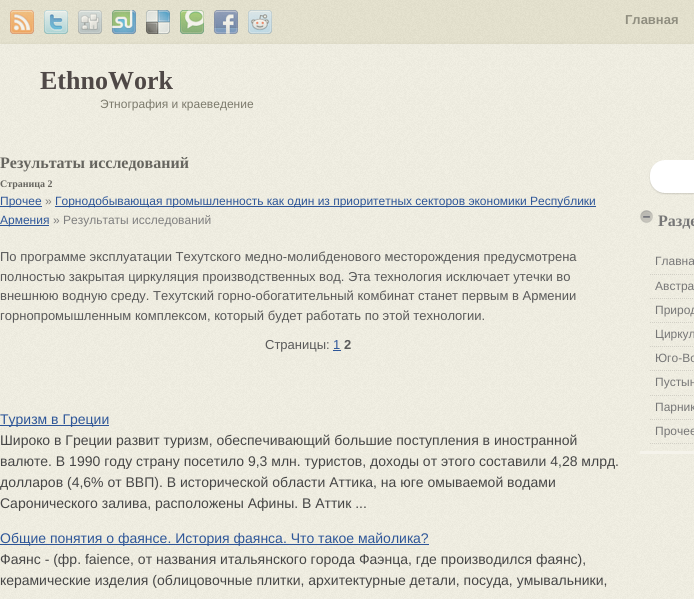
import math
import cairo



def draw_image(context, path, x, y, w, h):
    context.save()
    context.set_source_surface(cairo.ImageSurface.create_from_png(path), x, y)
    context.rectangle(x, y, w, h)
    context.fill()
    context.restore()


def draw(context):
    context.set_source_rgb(1, 1, 1)
    context.paint()
    draw_image(context, "images/1.png", 0, 44, 694, 555)
    draw_image(context, "images/2.png", 0, 0, 694, 44)
    draw_image(context, "images/3.png", 10, 10, 24, 24)
    draw_image(context, "images/4.png", 44, 10, 24, 24)
    draw_image(context, "images/5.png", 78, 10, 24, 24)
    draw_image(context, "images/6.png", 112, 10, 24, 24)
    draw_image(context, "images/7.png", 146, 10, 24, 24)
    draw_image(context, "images/8.png", 180, 10, 24, 24)
    draw_image(context, "images/9.png", 214, 10, 24, 24)
    draw_image(context, "images/10.png", 248, 10, 24, 24)
    context.set_source_rgb(46 / 255, 86 / 255, 152 / 255)
    context.rectangle(0, 206, 42, 1)
    context.fill()
    context.rectangle(55, 206, 541, 1)
    context.fill()
    context.rectangle(0, 225, 49, 1)
    context.fill()
    context.rectangle(333, 350, 8, 1)
    context.fill()
    context.rectangle(0, 425, 109, 1)
    context.fill()
    context.rectangle(0, 544, 429, 1)
    context.fill()
    draw_image(context, "images/11.png", 649, 160, 45, 35)
    context.set_source_rgb(245 / 255, 243 / 255, 235 / 255)
    context.rectangle(640, 451, 54, 3)
    context.fill()
    draw_image(context, "images/12.png", 640, 210, 13, 13)
    context.new_path()
    context.move_to(650, 274.5)
    context.line_to(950, 274.5)
    context.move_to(650, 298.5)
    context.line_to(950, 298.5)
    context.move_to(650, 322.5)
    context.line_to(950, 322.5)
    context.set_source_rgb(210 / 255, 208 / 255, 198 / 255)
    context.set_line_width(1)
    context.set_dash([1, 1])
    context.stroke()
    context.new_path()
    context.move_to(650, 346.5)
    context.line_to(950, 346.5)
    context.move_to(650, 370.5)
    context.line_to(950, 370.5)
    context.move_to(650, 395.5)
    context.line_to(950, 395.5)
    context.stroke()
    context.new_path()
    context.move_to(650, 419.5)
    context.line_to(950, 419.5)
    context.move_to(650, 443.5)
    context.line_to(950, 443.5)
    context.stroke()
    context.select_font_face("Liberation Sans", cairo.FontSlant.NORMAL, cairo.FontWeight.BOLD)
    context.set_font_size(13)
    context.set_source_rgb(144 / 255, 142 / 255, 128 / 255)
    context.move_to(625, 24)
    context.show_text("Главная")
    context.select_font_face("Liberation Serif", cairo.FontSlant.NORMAL, cairo.FontWeight.BOLD)
    context.set_font_size(26)
    context.set_source_rgb(79 / 255, 72 / 255, 70 / 255)
    context.move_to(40, 89)
    context.show_text("EthnoWork")
    context.select_font_face("Liberation Sans")
    context.set_font_size(12)
    context.set_source_rgb(124 / 255, 122 / 255, 108 / 255)
    context.move_to(100, 108)
    context.show_text("Этнография и краеведение")
    context.select_font_face("Liberation Serif", cairo.FontSlant.NORMAL, cairo.FontWeight.BOLD)
    context.set_font_size(16)
    context.set_source_rgb(102 / 255, 101 / 255, 95 / 255)
    context.move_to(0, 168)
    context.show_text("Результаты исследований")
    context.set_font_size(10)
    context.move_to(0, 187)
    context.show_text("Страница 2")
    context.select_font_face("Liberation Sans")
    context.set_font_size(12)
    context.set_source_rgb(46 / 255, 86 / 255, 152 / 255)
    context.move_to(0, 205)
    context.show_text("Прочее")
    context.set_source_rgb(126 / 255, 126 / 255, 126 / 255)
    context.move_to(45, 205)
    context.show_text("»")
    context.set_source_rgb(46 / 255, 86 / 255, 152 / 255)
    context.move_to(55, 205)
    context.show_text("Горнодобывающая промышленность как один из приоритетных секторов экономики Республики")
    context.move_to(0, 224)
    context.show_text("Армения")
    context.set_source_rgb(126 / 255, 126 / 255, 126 / 255)
    context.move_to(53, 224)
    context.show_text("» Результаты исследований")
    context.set_font_size(13)
    context.set_source_rgb(89 / 255, 89 / 255, 89 / 255)
    context.move_to(0, 261)
    context.show_text("По программе эксплуатации Техутского медно-молибденового месторождения предусмотрена")
    context.move_to(0, 281)
    context.show_text("полностью закрытая циркуляция производственных вод. Эта технология исключает утечки во")
    context.move_to(0, 300)
    context.show_text("внешнюю водную среду. Техутский горно-обогатительный комбинат станет первым в Армении")
    context.move_to(0, 320)
    context.show_text("горнопромышленным комплексом, который будет работать по этой технологии.")
    context.move_to(265, 349)
    context.show_text("Страницы:")
    context.set_source_rgb(46 / 255, 86 / 255, 152 / 255)
    context.move_to(333, 349)
    context.show_text("1")
    context.select_font_face("Liberation Sans", cairo.FontSlant.NORMAL, cairo.FontWeight.BOLD)
    context.set_source_rgb(89 / 255, 89 / 255, 89 / 255)
    context.move_to(344, 349)
    context.show_text("2")
    context.select_font_face("Liberation Sans")
    context.set_font_size(14)
    context.set_source_rgb(46 / 255, 86 / 255, 152 / 255)
    context.move_to(0, 424)
    context.show_text("Туризм в Греции")
    context.set_source_rgb(70 / 255, 70 / 255, 70 / 255)
    context.move_to(0, 445)
    context.show_text("Широко в Греции развит туризм, обеспечивающий большие поступления в иностранной")
    context.move_to(0, 466)
    context.show_text("валюте. В 1990 году страну посетило 9,3 млн. туристов, доходы от этого составили 4,28 млрд.")
    context.move_to(0, 487)
    context.show_text("долларов (4,6% от ВВП). В исторической области Аттика, на юге омываемой водами")
    context.move_to(0, 508)
    context.show_text("Саронического залива, расположены Афины. В Аттик ...")
    context.set_source_rgb(46 / 255, 86 / 255, 152 / 255)
    context.move_to(0, 543)
    context.show_text("Общие понятия о фаянсе. История фаянса. Что такое майолика?")
    context.set_source_rgb(70 / 255, 70 / 255, 70 / 255)
    context.move_to(0, 564)
    context.show_text("Фаянс - (фр. faience, от названия итальянского города Фаэнца, где производился фаянс),")
    context.move_to(0, 585)
    context.show_text("керамические изделия (облицовочные плитки, архитектурные детали, посуда, умывальники,")
    context.select_font_face("Liberation Serif", cairo.FontSlant.NORMAL, cairo.FontWeight.BOLD)
    context.set_font_size(16)
    context.set_source_rgb(119 / 255, 119 / 255, 119 / 255)
    context.move_to(658, 226)
    context.show_text("Разде")
    context.select_font_face("Liberation Sans")
    context.set_font_size(12)
    context.move_to(655, 265)
    context.show_text("Главна")
    context.move_to(655, 290)
    context.show_text("Австра")
    context.move_to(655, 314)
    context.show_text("Природ")
    context.move_to(655, 338)
    context.show_text("Циркул")
    context.move_to(655, 362)
    context.show_text("Юго-Во")
    context.move_to(655, 386)
    context.show_text("Пустын")
    context.move_to(655, 411)
    context.show_text("Парник")
    context.move_to(655, 435)
    context.show_text("Прочее")


surface = cairo.ImageSurface(cairo.Format.RGB24, 694, 599)
context = cairo.Context(surface)
options = cairo.FontOptions()
options.set_hint_metrics(cairo.HintMetrics.OFF)
options.set_hint_style(cairo.HintStyle.NONE)
context.set_font_options(options)
context.set_miter_limit(4)
draw(context)
surface.write_to_png("out.png")
